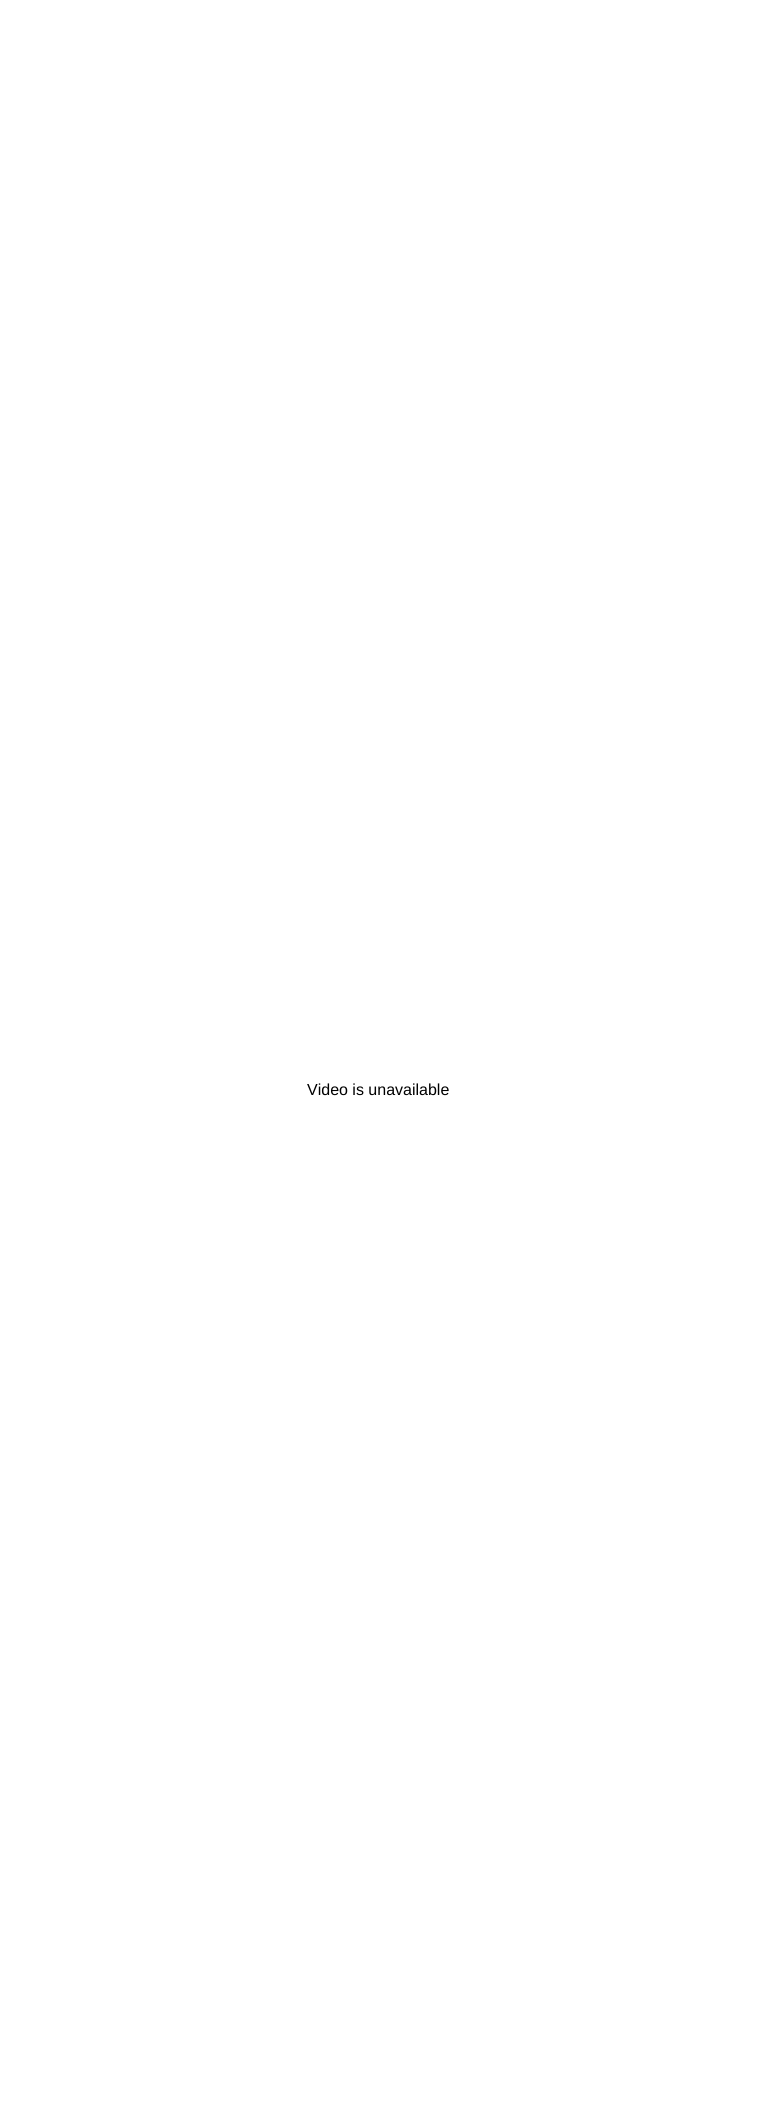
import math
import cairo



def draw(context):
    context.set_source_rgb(1, 1, 1)
    context.paint()
    context.select_font_face("Liberation Sans")
    context.set_font_size(16)
    context.set_source_rgb(0, 0, 0)
    context.move_to(307, 1095)
    context.show_text("Video is unavailable")


surface = cairo.ImageSurface(cairo.Format.RGB24, 757, 2116)
context = cairo.Context(surface)
options = cairo.FontOptions()
options.set_hint_metrics(cairo.HintMetrics.OFF)
options.set_hint_style(cairo.HintStyle.NONE)
context.set_font_options(options)
context.set_miter_limit(4)
draw(context)
surface.write_to_png("out.png")
